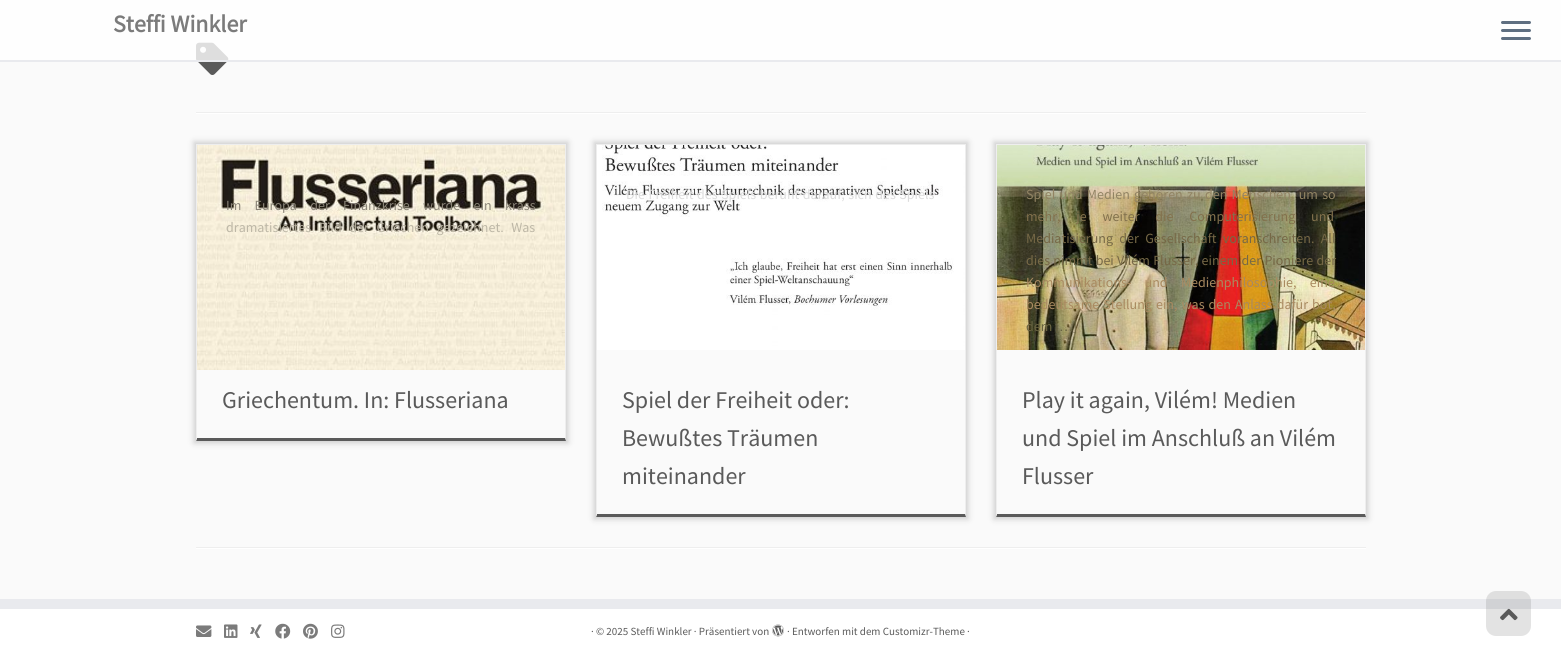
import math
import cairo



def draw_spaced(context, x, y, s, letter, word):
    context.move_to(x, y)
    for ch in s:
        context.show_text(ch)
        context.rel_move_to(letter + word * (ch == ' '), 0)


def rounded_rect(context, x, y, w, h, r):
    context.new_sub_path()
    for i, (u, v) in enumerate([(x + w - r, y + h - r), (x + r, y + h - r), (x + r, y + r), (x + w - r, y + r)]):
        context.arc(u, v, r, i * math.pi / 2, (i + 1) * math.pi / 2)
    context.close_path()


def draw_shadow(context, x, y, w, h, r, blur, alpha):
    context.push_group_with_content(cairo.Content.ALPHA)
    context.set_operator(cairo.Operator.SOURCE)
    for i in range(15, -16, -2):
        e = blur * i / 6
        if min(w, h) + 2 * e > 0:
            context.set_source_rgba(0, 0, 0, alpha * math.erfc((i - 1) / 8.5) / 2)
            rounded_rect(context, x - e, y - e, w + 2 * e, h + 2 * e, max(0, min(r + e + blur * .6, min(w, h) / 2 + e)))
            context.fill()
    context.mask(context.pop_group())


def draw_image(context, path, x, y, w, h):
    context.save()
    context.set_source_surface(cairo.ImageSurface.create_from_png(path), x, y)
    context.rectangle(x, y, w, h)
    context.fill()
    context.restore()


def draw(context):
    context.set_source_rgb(250 / 255, 250 / 255, 250 / 255)
    context.paint()
    draw_image(context, "images/1.png", 196, 42, 33, 33)
    context.set_source_rgba(1, 1, 1, 0.8)
    context.rectangle(0, 0, 1561, 60)
    context.fill()
    context.set_source_rgb(233 / 255, 234 / 255, 238 / 255)
    context.rectangle(0, 60, 1561, 2)
    context.fill()
    context.set_source_rgb(95 / 255, 111 / 255, 129 / 255)
    rounded_rect(context, 1501, 21, 30, 3, 1.5)
    context.fill()
    rounded_rect(context, 1501, 29, 30, 3, 1.5)
    context.fill()
    rounded_rect(context, 1501, 37, 30, 3, 1.5)
    context.fill()
    context.set_source_rgb(238 / 255, 238 / 255, 238 / 255)
    context.rectangle(196, 112, 1170, 1)
    context.fill()
    context.set_source_rgb(1, 1, 1)
    context.rectangle(196, 113, 1170, 1)
    context.fill()
    context.save()
    context.set_fill_rule(cairo.FillRule.EVEN_ODD)
    context.new_path()
    context.move_to(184, 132)
    context.line_to(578, 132)
    context.line_to(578, 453)
    context.line_to(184, 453)
    context.close_path()
    context.move_to(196, 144)
    context.line_to(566, 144)
    context.line_to(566, 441)
    context.line_to(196, 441)
    context.close_path()
    context.clip()
    context.set_source_rgb(204 / 255, 204 / 255, 204 / 255)
    draw_shadow(context, 194, 142, 374, 301, 0, 3, 1)
    context.restore()
    context.set_source_rgb(238 / 255, 238 / 255, 238 / 255)
    context.rectangle(196, 144, 370, 1)
    context.fill()
    context.new_path()
    context.move_to(566, 144)
    context.line_to(566, 441)
    context.line_to(565, 438)
    context.line_to(565, 145)
    context.close_path()
    context.fill()
    context.set_source_rgb(90 / 255, 90 / 255, 90 / 255)
    context.new_path()
    context.move_to(566, 441)
    context.line_to(196, 441)
    context.line_to(197, 438)
    context.line_to(565, 438)
    context.close_path()
    context.fill()
    context.set_source_rgb(238 / 255, 238 / 255, 238 / 255)
    context.new_path()
    context.move_to(196, 441)
    context.line_to(196, 144)
    context.line_to(197, 145)
    context.line_to(197, 438)
    context.close_path()
    context.fill()
    draw_image(context, "images/2.png", 197, 145, 368, 225)
    context.save()
    context.set_fill_rule(cairo.FillRule.EVEN_ODD)
    context.new_path()
    context.move_to(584, 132)
    context.line_to(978, 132)
    context.line_to(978, 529)
    context.line_to(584, 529)
    context.close_path()
    context.move_to(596, 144)
    context.line_to(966, 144)
    context.line_to(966, 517)
    context.line_to(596, 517)
    context.close_path()
    context.clip()
    context.set_source_rgb(204 / 255, 204 / 255, 204 / 255)
    draw_shadow(context, 594, 142, 374, 377, 0, 3, 1)
    context.restore()
    context.rectangle(596, 144, 370, 1)
    context.fill()
    context.new_path()
    context.move_to(966, 144)
    context.line_to(966, 517)
    context.line_to(965, 514)
    context.line_to(965, 145)
    context.close_path()
    context.fill()
    context.set_source_rgb(90 / 255, 90 / 255, 90 / 255)
    context.new_path()
    context.move_to(966, 517)
    context.line_to(596, 517)
    context.line_to(597, 514)
    context.line_to(965, 514)
    context.close_path()
    context.fill()
    context.set_source_rgb(238 / 255, 238 / 255, 238 / 255)
    context.new_path()
    context.move_to(596, 517)
    context.line_to(596, 144)
    context.line_to(597, 145)
    context.line_to(597, 514)
    context.close_path()
    context.fill()
    draw_image(context, "images/3.png", 597, 145, 368, 205)
    context.save()
    context.set_fill_rule(cairo.FillRule.EVEN_ODD)
    context.new_path()
    context.move_to(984, 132)
    context.line_to(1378, 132)
    context.line_to(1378, 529)
    context.line_to(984, 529)
    context.close_path()
    context.move_to(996, 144)
    context.line_to(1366, 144)
    context.line_to(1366, 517)
    context.line_to(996, 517)
    context.close_path()
    context.clip()
    context.set_source_rgb(204 / 255, 204 / 255, 204 / 255)
    draw_shadow(context, 994, 142, 374, 377, 0, 3, 1)
    context.restore()
    context.rectangle(996, 144, 370, 1)
    context.fill()
    context.new_path()
    context.move_to(1366, 144)
    context.line_to(1366, 517)
    context.line_to(1365, 514)
    context.line_to(1365, 145)
    context.close_path()
    context.fill()
    context.set_source_rgb(90 / 255, 90 / 255, 90 / 255)
    context.new_path()
    context.move_to(1366, 517)
    context.line_to(996, 517)
    context.line_to(997, 514)
    context.line_to(1365, 514)
    context.close_path()
    context.fill()
    context.set_source_rgb(238 / 255, 238 / 255, 238 / 255)
    context.new_path()
    context.move_to(996, 517)
    context.line_to(996, 144)
    context.line_to(997, 145)
    context.line_to(997, 514)
    context.close_path()
    context.fill()
    draw_image(context, "images/4.png", 997, 145, 368, 205)
    context.rectangle(196, 547, 1170, 1)
    context.fill()
    context.set_source_rgb(1, 1, 1)
    context.rectangle(196, 548, 1170, 1)
    context.fill()
    context.set_source_rgb(233 / 255, 234 / 255, 238 / 255)
    context.rectangle(0, 599, 1561, 10)
    context.fill()
    context.set_source_rgb(1, 1, 1)
    context.rectangle(0, 609, 1561, 52)
    context.fill()
    draw_image(context, "images/5.png", 196, 625, 16, 12)
    draw_image(context, "images/6.png", 224, 624, 14, 14)
    draw_image(context, "images/7.png", 250, 624, 12, 14)
    draw_image(context, "images/8.png", 275, 623, 16, 16)
    draw_image(context, "images/9.png", 303, 623, 15, 16)
    draw_image(context, "images/10.png", 331, 624, 14, 14)
    draw_image(context, "images/11.png", 772, 624, 12, 13)
    context.set_source_rgba(119 / 255, 119 / 255, 119 / 255, 0.2)
    rounded_rect(context, 1486, 591, 45, 45, 10)
    context.fill()
    draw_image(context, "images/12.png", 1500, 608, 18, 13)
    context.select_font_face("Source Sans Pro", cairo.FontSlant.NORMAL, cairo.FontWeight.BOLD)
    context.set_font_size(24)
    context.set_source_rgb(123 / 255, 123 / 255, 123 / 255)
    context.move_to(113, 32)
    context.show_text("Steffi Winkler")
    context.select_font_face("Source Sans Pro")
    context.set_font_size(14)
    context.set_source_rgb(138 / 255, 132 / 255, 119 / 255)
    draw_spaced(context, 226, 210, "Im Europa der Finanzkrise wurde ein krass", 0, 10.5)
    context.set_source_rgb(189 / 255, 183 / 255, 166 / 255)
    draw_spaced(context, 226, 232, "dramatisiertes Bild der Griechen gezeichnet. Was", 0, 4.75)
    context.set_font_size(24)
    context.set_source_rgb(90 / 255, 90 / 255, 90 / 255)
    context.move_to(222, 408)
    context.show_text("Griechentum. In: Flusseriana")
    context.set_font_size(14)
    context.set_source_rgb(221 / 255, 221 / 255, 221 / 255)
    draw_spaced(context, 626, 199, "Die Freiheit des Spiels beruht darauf, sich des Spiels", 0, 0.75)
    context.set_font_size(24)
    context.set_source_rgb(90 / 255, 90 / 255, 90 / 255)
    context.move_to(622, 408)
    context.show_text("Spiel der Freiheit oder:")
    context.move_to(622, 446)
    context.show_text("Bewußtes Träumen")
    context.move_to(622, 484)
    context.show_text("miteinander")
    context.set_font_size(14)
    context.set_source_rgb(145 / 255, 131 / 255, 99 / 255)
    draw_spaced(context, 1026, 199, "Spiel und Medien gehören zu den Menschen, um so", 0, 1.5)
    context.set_source_rgb(130 / 255, 113 / 255, 76 / 255)
    draw_spaced(context, 1026, 221, "mehr, je weiter die Computerisierung und", 0, 13)
    context.set_source_rgb(118 / 255, 104 / 255, 70 / 255)
    draw_spaced(context, 1026, 243, "Mediatisierung der Gesellschaft voranschreiten. All", 0, 3.5)
    draw_spaced(context, 1026, 265, "dies nimmt bei Vilém Flusser, einem der Pioniere der", 0, 0.5)
    context.set_source_rgb(169 / 255, 138 / 255, 96 / 255)
    draw_spaced(context, 1026, 287, "Kommunikations- und Medienphilosophie, eine", 0, 10.5)
    draw_spaced(context, 1026, 309, "bedeutsame Stellung ein, was den Anlass dafür bot,", 0, 1.25)
    context.set_source_rgb(105 / 255, 100 / 255, 65 / 255)
    context.move_to(1026, 331)
    context.show_text("dem […]")
    context.set_font_size(24)
    context.set_source_rgb(90 / 255, 90 / 255, 90 / 255)
    context.move_to(1022, 408)
    context.show_text("Play it again, Vilém! Medien")
    context.move_to(1022, 446)
    context.show_text("und Spiel im Anschluß an Vilém")
    context.move_to(1022, 484)
    context.show_text("Flusser")
    context.set_font_size(11)
    context.move_to(591, 635)
    context.show_text("· © 2025 Steffi Winkler · Präsentiert von")
    context.move_to(787, 635)
    context.show_text("· Entworfen mit dem Customizr-Theme ·")


surface = cairo.ImageSurface(cairo.Format.RGB24, 1561, 661)
context = cairo.Context(surface)
options = cairo.FontOptions()
options.set_hint_metrics(cairo.HintMetrics.OFF)
options.set_hint_style(cairo.HintStyle.NONE)
context.set_font_options(options)
context.set_miter_limit(4)
draw(context)
surface.write_to_png("out.png")
